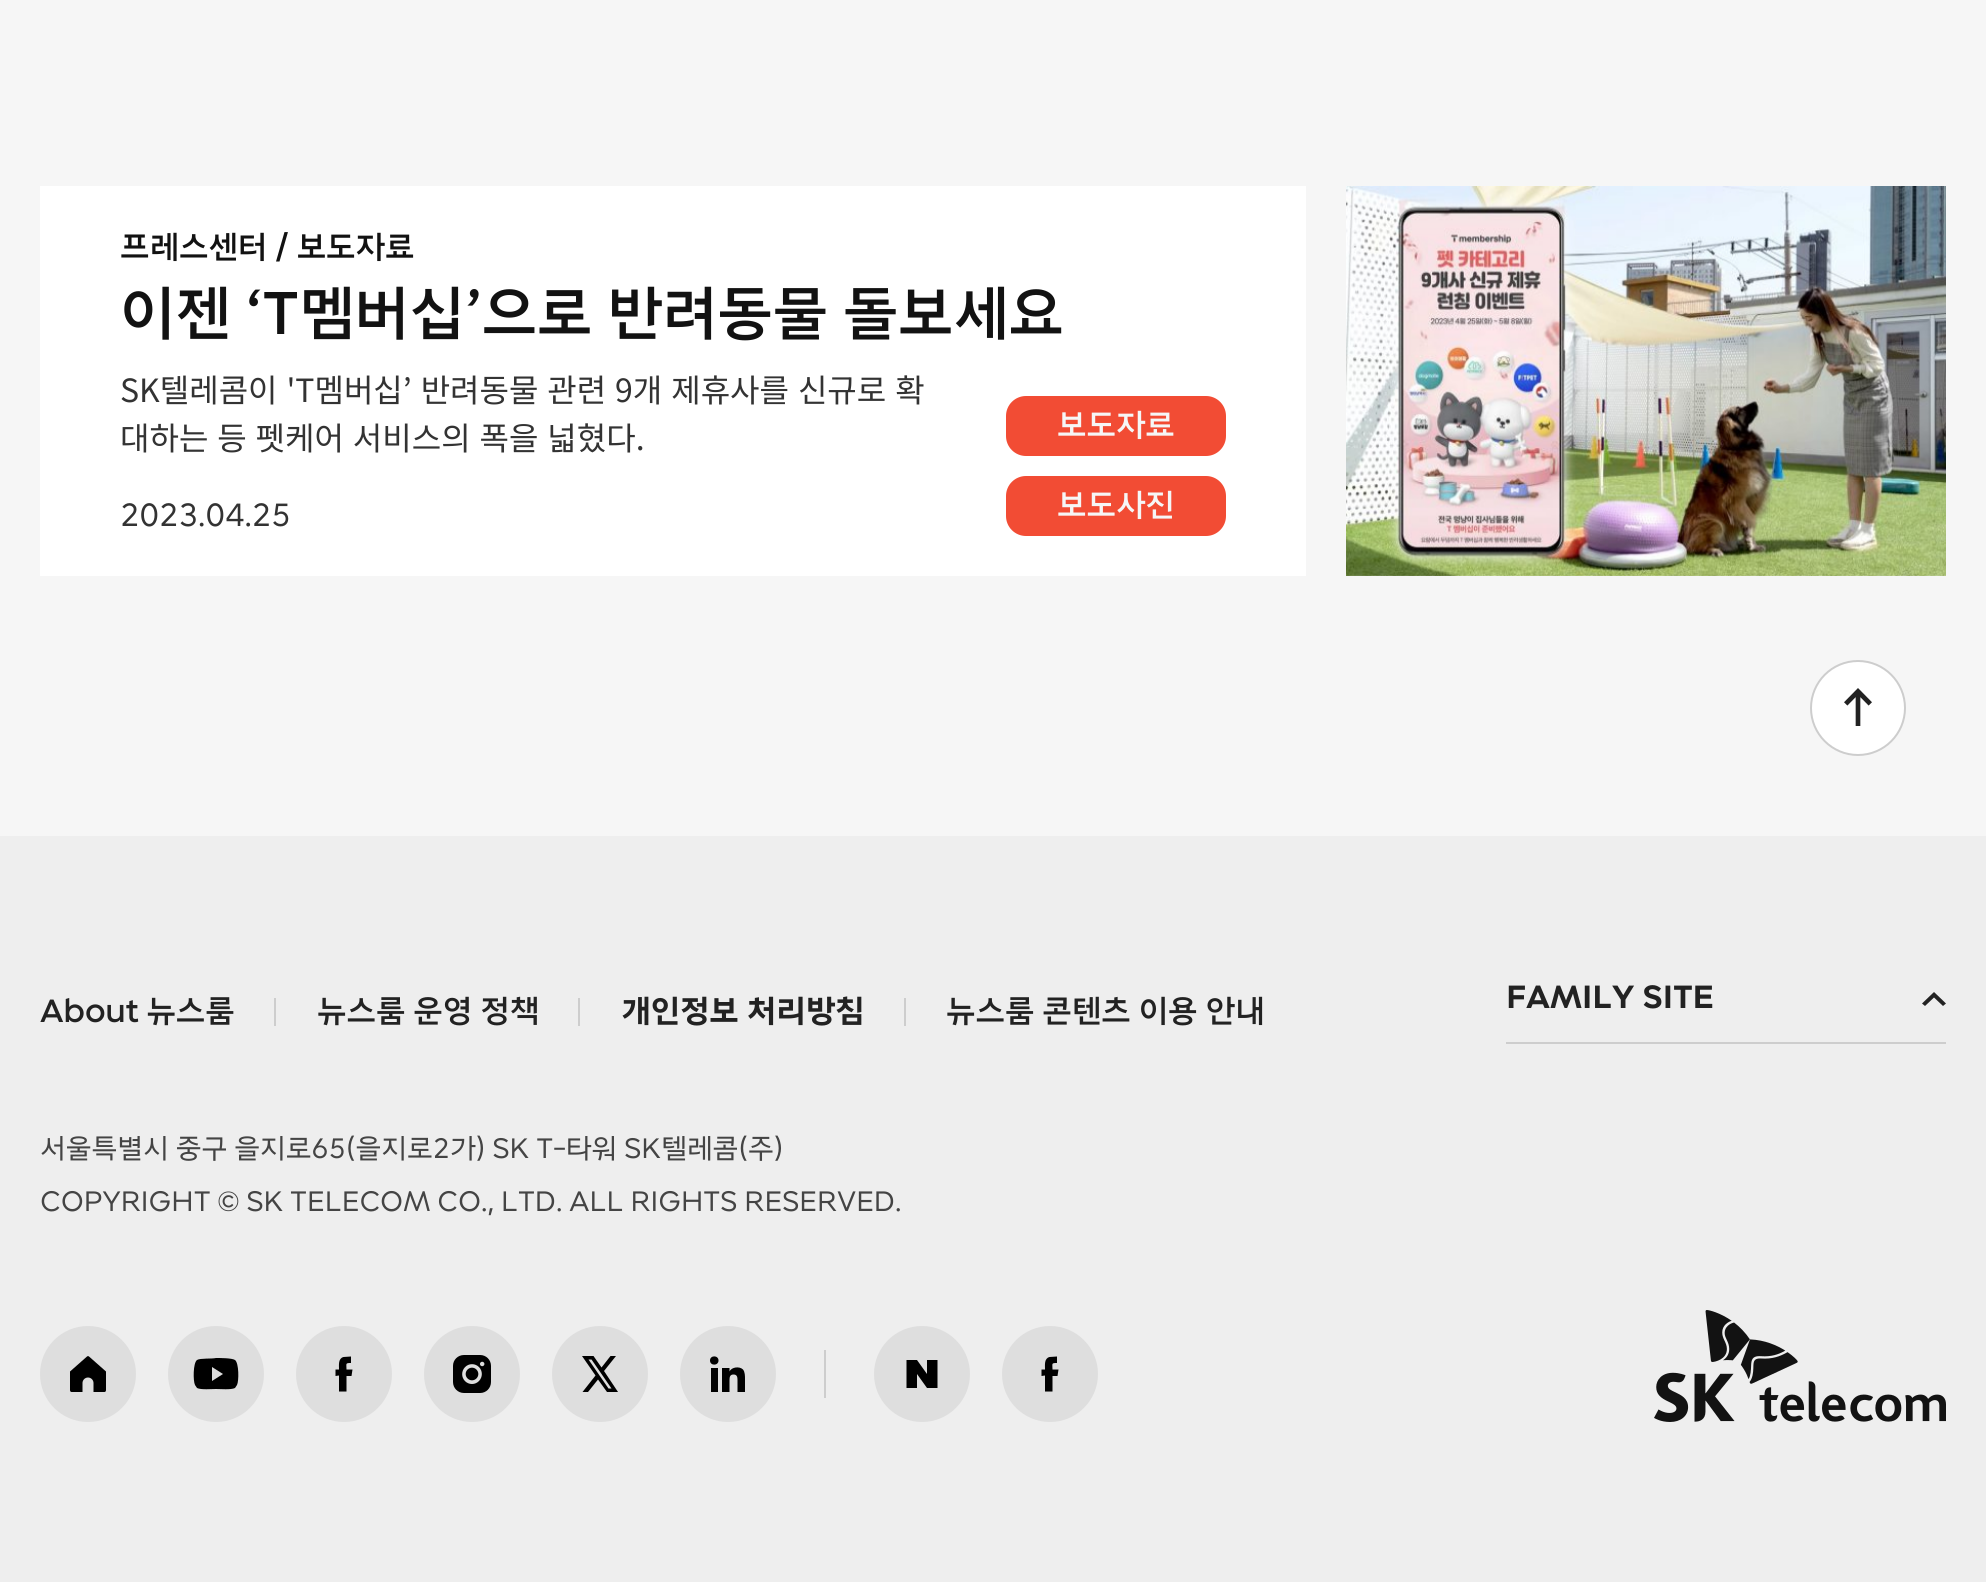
import math
import cairo



def draw_spaced(context, x, y, s, letter, word):
    context.move_to(x, y)
    for ch in s:
        context.show_text(ch)
        context.rel_move_to(letter + word * (ch == ' '), 0)


def rounded_rect(context, x, y, w, h, r):
    context.new_sub_path()
    for i, (u, v) in enumerate([(x + w - r, y + h - r), (x + r, y + h - r), (x + r, y + r), (x + w - r, y + r)]):
        context.arc(u, v, r, i * math.pi / 2, (i + 1) * math.pi / 2)
    context.close_path()


def draw_image(context, path, x, y, w, h):
    context.save()
    context.set_source_surface(cairo.ImageSurface.create_from_png(path), x, y)
    context.rectangle(x, y, w, h)
    context.fill()
    context.restore()


def draw(context):
    context.set_source_rgb(246 / 255, 246 / 255, 246 / 255)
    context.paint()
    context.set_source_rgb(1, 1, 1)
    context.rectangle(40, 186, 1266, 390)
    context.fill()
    draw_image(context, "images/1.png", 1346, 186, 600, 390)
    context.set_source_rgb(242 / 255, 76 / 255, 52 / 255)
    rounded_rect(context, 1006, 396, 220, 60, 20)
    context.fill()
    rounded_rect(context, 1006, 476, 220, 60, 20)
    context.fill()
    draw_image(context, "images/2.png", 1810, 660, 96, 96)
    context.set_source_rgb(238 / 255, 238 / 255, 238 / 255)
    context.rectangle(0, 836, 1986, 746)
    context.fill()
    context.set_source_rgb(205 / 255, 205 / 255, 205 / 255)
    context.rectangle(274, 998, 2, 28)
    context.fill()
    context.rectangle(578, 998, 2, 28)
    context.fill()
    context.rectangle(904, 998, 2, 28)
    context.fill()
    context.set_source_rgb(222 / 255, 222 / 255, 222 / 255)
    context.arc(88, 1374, 48, 0, 2 * math.pi)
    context.fill()
    context.set_source_rgb(0, 0, 0)
    context.set_fill_rule(cairo.FillRule.EVEN_ODD)
    context.new_path()
    context.move_to(89, 1356.5)
    context.curve_to(88.5, 1356, 87.5, 1356, 87, 1356.5)
    context.line_to(70, 1371.5)
    context.line_to(70, 1390)
    context.curve_to(70, 1391, 70.5, 1392, 71.5, 1392)
    context.line_to(82.5, 1392)
    context.line_to(82.5, 1383)
    context.curve_to(82.5, 1380, 85, 1377.5, 88, 1377.5)
    context.curve_to(91, 1377.5, 93.5, 1380, 93.5, 1383)
    context.line_to(93.5, 1392)
    context.line_to(104.5, 1392)
    context.curve_to(105.5, 1392, 106, 1391, 106, 1390)
    context.line_to(106, 1371.5)
    context.close_path()
    context.fill()
    context.set_source_rgb(222 / 255, 222 / 255, 222 / 255)
    context.arc(216, 1374, 48, 0, 2 * math.pi)
    context.fill()
    context.set_source_rgb(0, 0, 0)
    context.set_fill_rule(cairo.FillRule.WINDING)
    context.new_path()
    context.move_to(216, 1358)
    context.curve_to(220, 1358, 232, 1358, 235, 1360)
    context.curve_to(239, 1363, 239, 1381, 237, 1385)
    context.line_to(235, 1388)
    context.curve_to(231, 1390, 220, 1389, 216, 1389)
    context.curve_to(212, 1389, 201, 1390, 197, 1388)
    context.line_to(195, 1385)
    context.curve_to(193, 1381, 193, 1363, 197, 1360)
    context.curve_to(200, 1358, 212, 1359, 216, 1358)
    context.close_path()
    context.move_to(212, 1381)
    context.line_to(223, 1374)
    context.line_to(212, 1367)
    context.close_path()
    context.fill()
    context.set_source_rgb(222 / 255, 222 / 255, 222 / 255)
    context.arc(344, 1374, 48, 0, 2 * math.pi)
    context.fill()
    context.set_source_rgb(0, 0, 0)
    context.set_fill_rule(cairo.FillRule.EVEN_ODD)
    context.new_path()
    context.move_to(339, 1375.5)
    context.line_to(339, 1391.5)
    context.line_to(346.5, 1391.5)
    context.line_to(346.5, 1376)
    context.line_to(351.5, 1376)
    context.line_to(352.5, 1369.5)
    context.line_to(346.5, 1369.5)
    context.curve_to(346.5, 1363.5, 345, 1363, 351, 1363)
    context.line_to(351, 1356.5)
    context.line_to(343.5, 1357)
    context.curve_to(338, 1358.5, 339, 1365, 339, 1369.5)
    context.line_to(335.5, 1369.5)
    context.line_to(335.5, 1376)
    context.close_path()
    context.fill()
    draw_image(context, "images/3.png", 424, 1326, 96, 96)
    context.set_source_rgb(222 / 255, 222 / 255, 222 / 255)
    context.arc(600, 1374, 48, 0, 2 * math.pi)
    context.fill()
    context.set_source_rgb(0, 0, 0)
    context.set_fill_rule(cairo.FillRule.WINDING)
    context.new_path()
    context.move_to(610.5, 1356)
    context.line_to(616, 1356)
    context.line_to(604, 1371)
    context.line_to(618, 1392)
    context.line_to(607, 1392)
    context.line_to(598, 1379.5)
    context.line_to(588, 1392)
    context.line_to(582.5, 1392)
    context.line_to(595.5, 1375.5)
    context.line_to(582, 1356)
    context.line_to(593.5, 1356)
    context.line_to(601.5, 1367.5)
    context.close_path()
    context.move_to(608.5, 1388.5)
    context.line_to(611.5, 1388.5)
    context.line_to(591.5, 1359.5)
    context.line_to(588.5, 1359.5)
    context.close_path()
    context.fill()
    context.set_source_rgb(222 / 255, 222 / 255, 222 / 255)
    context.arc(728, 1374, 48, 0, 2 * math.pi)
    context.fill()
    context.set_source_rgb(0, 0, 0)
    context.rectangle(711, 1368, 7, 24)
    context.fill()
    context.new_path()
    context.move_to(745, 1379)
    context.line_to(745, 1392)
    context.line_to(737.5, 1392)
    context.line_to(737.5, 1380)
    context.curve_to(737.5, 1377, 737, 1374.5, 733.5, 1374.5)
    context.curve_to(730, 1374.5, 729.5, 1377, 729.5, 1380)
    context.line_to(729.5, 1392)
    context.line_to(722, 1392)
    context.line_to(722, 1368)
    context.line_to(729.5, 1368)
    context.line_to(729.5, 1371.5)
    context.curve_to(731.5, 1367, 739.5, 1366, 743, 1369.5)
    context.curve_to(745, 1372, 745, 1376, 745, 1379)
    context.close_path()
    context.move_to(718.5, 1360.5)
    context.curve_to(718.5, 1355, 710, 1355, 710, 1360.5)
    context.curve_to(710, 1366, 718.5, 1366, 718.5, 1360.5)
    context.close_path()
    context.fill()
    context.set_source_rgb(205 / 255, 205 / 255, 205 / 255)
    context.rectangle(824, 1350, 2, 48)
    context.fill()
    context.set_source_rgb(222 / 255, 222 / 255, 222 / 255)
    context.arc(922, 1374, 48, 0, 2 * math.pi)
    context.fill()
    context.set_source_rgb(0, 0, 0)
    context.new_path()
    context.move_to(927, 1360)
    context.line_to(927, 1374)
    context.line_to(917, 1360)
    context.line_to(906.5, 1360)
    context.line_to(906.5, 1388)
    context.line_to(917, 1388)
    context.line_to(917, 1374)
    context.line_to(927, 1388)
    context.line_to(937.5, 1388)
    context.line_to(937.5, 1360)
    context.close_path()
    context.fill()
    context.set_source_rgb(222 / 255, 222 / 255, 222 / 255)
    context.arc(1050, 1374, 48, 0, 2 * math.pi)
    context.fill()
    context.set_source_rgb(0, 0, 0)
    context.set_fill_rule(cairo.FillRule.EVEN_ODD)
    context.new_path()
    context.move_to(1045, 1375.5)
    context.line_to(1045, 1391.5)
    context.line_to(1052.5, 1391.5)
    context.line_to(1052.5, 1376)
    context.line_to(1057.5, 1376)
    context.line_to(1058.5, 1369.5)
    context.line_to(1052.5, 1369.5)
    context.curve_to(1052.5, 1363.5, 1051, 1363, 1057, 1363)
    context.line_to(1057, 1356.5)
    context.line_to(1049.5, 1357)
    context.curve_to(1044, 1358.5, 1045, 1365, 1045, 1369.5)
    context.line_to(1041.5, 1369.5)
    context.line_to(1041.5, 1376)
    context.close_path()
    context.fill()
    context.set_source_rgb(205 / 255, 205 / 255, 205 / 255)
    context.rectangle(1506, 1042, 440, 2)
    context.fill()
    context.set_source_rgb(34 / 255, 34 / 255, 34 / 255)
    context.set_fill_rule(cairo.FillRule.WINDING)
    context.new_path()
    context.move_to(1934, 997.5)
    context.line_to(1925, 1006)
    context.line_to(1922, 1003.5)
    context.line_to(1934, 992)
    context.line_to(1946, 1003.5)
    context.line_to(1943, 1006)
    context.close_path()
    context.fill()
    draw_image(context, "images/4.png", 1654, 1310, 292, 112)
    context.select_font_face("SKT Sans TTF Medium")
    context.set_font_size(32)
    context.set_source_rgb(18 / 255, 18 / 255, 18 / 255)
    context.move_to(120, 258)
    context.show_text("프레스센터 / 보도자료")
    context.set_font_size(60)
    context.move_to(120, 334)
    context.show_text("이젠 ‘T멤버십’으로 반려동물 돌보세요")
    context.select_font_face("Noto Sans KR")
    context.set_font_size(32)
    context.set_source_rgb(51 / 255, 51 / 255, 51 / 255)
    draw_spaced(context, 120, 402, "SK텔레콤이 'T멤버십’ 반려동물 관련 9개 제휴사를 신규로 확", 0, 1.75)
    draw_spaced(context, 120, 450, "대하는 등 펫케어 서비스의 폭을 넓혔다.", 0, 1.75)
    context.select_font_face("SKT Sans TTF")
    context.move_to(120, 526)
    context.show_text("2023.04.25")
    context.select_font_face("SKT Sans TTF Medium")
    context.set_source_rgb(246 / 255, 246 / 255, 246 / 255)
    context.move_to(1057, 436)
    context.show_text("보도자료")
    context.move_to(1057, 516)
    context.show_text("보도사진")
    context.set_source_rgb(34 / 255, 34 / 255, 34 / 255)
    context.move_to(40, 1022)
    context.show_text("About 뉴스룸")
    context.move_to(317, 1022)
    context.show_text("뉴스룸 운영 정책")
    context.select_font_face("SKT Sans TTF", cairo.FontSlant.NORMAL, cairo.FontWeight.BOLD)
    context.move_to(621, 1022)
    context.show_text("개인정보 처리방침")
    context.select_font_face("SKT Sans TTF Medium")
    context.move_to(946, 1022)
    context.show_text("뉴스룸 콘텐츠 이용 안내")
    context.select_font_face("SKT Sans TTF")
    context.set_font_size(28)
    context.set_source_rgb(68 / 255, 68 / 255, 68 / 255)
    context.move_to(40, 1158)
    context.show_text("서울특별시 중구 을지로65(을지로2가) SK T-타워 SK텔레콤(주)")
    context.move_to(40, 1211)
    context.show_text("COPYRIGHT © SK TELECOM CO., LTD. ALL RIGHTS RESERVED.")
    context.select_font_face("SKT Sans TTF", cairo.FontSlant.NORMAL, cairo.FontWeight.BOLD)
    context.set_font_size(32)
    context.set_source_rgb(34 / 255, 34 / 255, 34 / 255)
    context.move_to(1506, 1008)
    context.show_text("FAMILY SITE")


surface = cairo.ImageSurface(cairo.Format.RGB24, 1986, 1582)
context = cairo.Context(surface)
options = cairo.FontOptions()
options.set_hint_metrics(cairo.HintMetrics.OFF)
options.set_hint_style(cairo.HintStyle.NONE)
context.set_font_options(options)
context.set_miter_limit(4)
draw(context)
surface.write_to_png("out.png")
